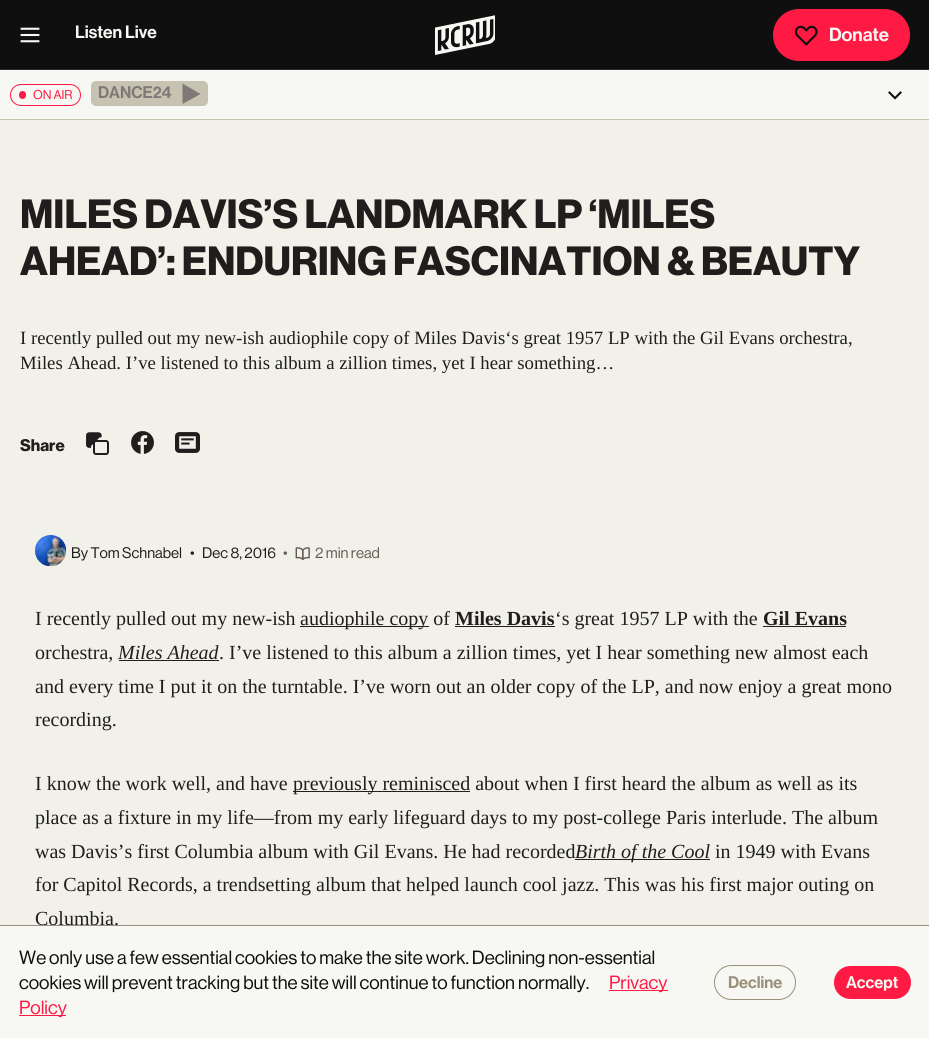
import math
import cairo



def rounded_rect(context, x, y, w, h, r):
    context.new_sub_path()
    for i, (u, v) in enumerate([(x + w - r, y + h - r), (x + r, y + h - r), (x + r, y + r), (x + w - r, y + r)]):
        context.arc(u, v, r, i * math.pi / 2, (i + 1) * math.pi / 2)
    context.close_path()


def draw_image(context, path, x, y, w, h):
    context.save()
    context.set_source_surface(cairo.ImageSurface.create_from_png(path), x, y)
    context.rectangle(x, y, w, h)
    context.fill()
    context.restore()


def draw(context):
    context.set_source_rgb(241 / 255, 241 / 255, 234 / 255)
    context.paint()
    context.set_source_rgb(15 / 255, 15 / 255, 15 / 255)
    context.rectangle(0, 0, 929, 69)
    context.fill()
    context.set_source_rgb(43 / 255, 43 / 255, 42 / 255)
    context.rectangle(0, 69, 929, 1)
    context.fill()
    draw_image(context, "images/1.png", 20, 27, 20, 16)
    draw_image(context, "images/2.png", 435, 15, 60, 40)
    context.set_source_rgb(1, 26 / 255, 68 / 255)
    rounded_rect(context, 773.5, 9.5, 136, 51, 25.5)
    context.fill_preserve()
    context.set_line_width(1)
    context.stroke()
    draw_image(context, "images/3.png", 794, 25, 24, 21)
    context.set_source_rgb(247 / 255, 247 / 255, 243 / 255)
    context.rectangle(0, 70, 929, 49)
    context.fill()
    context.set_source_rgb(199 / 255, 196 / 255, 174 / 255)
    context.rectangle(0, 119, 929, 1)
    context.fill()
    rounded_rect(context, 10.5, 84.5, 70, 21, 10.5)
    context.set_source_rgb(1, 26 / 255, 68 / 255)
    context.stroke()
    rounded_rect(context, 19, 91, 7, 8, 3.5)
    context.fill()
    context.set_source_rgb(239 / 255, 239 / 255, 239 / 255)
    rounded_rect(context, 91, 81, 117, 25, 5)
    context.fill()
    context.set_source_rgba(182 / 255, 177 / 255, 154 / 255, 0.7)
    rounded_rect(context, 91, 81, 117, 25, 5)
    context.fill()
    context.set_source_rgb(126 / 255, 121 / 255, 118 / 255)
    context.new_path()
    context.move_to(182.5, 83.5)
    context.line_to(182.5, 104)
    context.line_to(200.5, 94)
    context.close_path()
    context.fill()
    draw_image(context, "images/4.png", 888, 91, 14, 9)
    draw_image(context, "images/5.png", 86, 432, 23, 23)
    draw_image(context, "images/6.png", 131, 431, 23, 23)
    draw_image(context, "images/7.png", 175, 432, 25, 21)
    draw_image(context, "images/8.png", 35, 535, 32, 32)
    draw_image(context, "images/9.png", 295, 547, 15, 14)
    context.set_source_rgb(32 / 255, 30 / 255, 29 / 255)
    context.rectangle(300, 626, 129, 1)
    context.fill()
    context.rectangle(455, 626, 100, 1)
    context.fill()
    context.rectangle(763, 626, 83, 1)
    context.fill()
    context.rectangle(119, 660, 100, 1)
    context.fill()
    context.rectangle(293, 791, 177, 1)
    context.fill()
    context.rectangle(575, 859, 135, 1)
    context.fill()
    context.set_source_rgb(247 / 255, 247 / 255, 243 / 255)
    context.rectangle(0, 926, 929, 112)
    context.fill()
    context.set_source_rgb(1, 26 / 255, 68 / 255)
    context.rectangle(609, 990, 59, 1)
    context.fill()
    context.rectangle(19, 1015, 47, 1)
    context.fill()
    rounded_rect(context, 714.5, 965.5, 81, 34, 17)
    context.set_source_rgb(154 / 255, 144 / 255, 121 / 255)
    context.stroke()
    context.set_source_rgb(1, 26 / 255, 68 / 255)
    rounded_rect(context, 834, 966, 77, 33, 16.5)
    context.fill()
    context.select_font_face("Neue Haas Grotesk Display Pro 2 Medium")
    context.set_font_size(17.5)
    context.set_source_rgb(247 / 255, 247 / 255, 243 / 255)
    context.move_to(75, 38)
    context.show_text("Listen Live")
    context.set_font_size(18.75)
    context.move_to(829, 41)
    context.show_text("Donate")
    context.select_font_face("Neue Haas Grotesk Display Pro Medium")
    context.set_font_size(12.5)
    context.set_source_rgb(1, 26 / 255, 68 / 255)
    context.move_to(33, 99)
    context.show_text("ON AIR")
    context.select_font_face("Neue Haas Grotesk Display Pro 2 Medium")
    context.set_font_size(16.5)
    context.set_source_rgb(126 / 255, 121 / 255, 118 / 255)
    context.move_to(98, 98)
    context.show_text("DANCE24")
    context.select_font_face("Neue Haas Grotesk Display Pro", cairo.FontSlant.NORMAL, cairo.FontWeight.BOLD)
    context.set_font_size(40)
    context.set_source_rgb(32 / 255, 30 / 255, 29 / 255)
    context.move_to(20, 228)
    context.show_text("MILES DAVIS’S LANDMARK LP ‘MILES")
    context.move_to(20, 275)
    context.show_text("AHEAD’: ENDURING FASCINATION & BEAUTY")
    context.select_font_face("Liberation Serif")
    context.set_font_size(18.75)
    context.move_to(20, 344)
    context.show_text("I recently pulled out my new-ish audiophile copy of Miles Davis‘s great 1957 LP with the Gil Evans orchestra,")
    context.move_to(20, 369)
    context.show_text("Miles Ahead. I’ve listened to this album a zillion times, yet I hear something…")
    context.select_font_face("Neue Haas Grotesk Display Pro", cairo.FontSlant.NORMAL, cairo.FontWeight.BOLD)
    context.set_font_size(16.5)
    context.move_to(20, 451)
    context.show_text("Share")
    context.select_font_face("Neue Haas Grotesk Display Pro Medium")
    context.set_font_size(15)
    context.move_to(71, 558)
    context.show_text("By Tom Schnabel")
    context.move_to(190, 558)
    context.show_text("•")
    context.move_to(202, 558)
    context.show_text("Dec 8, 2016")
    context.set_source_rgb(101 / 255, 92 / 255, 83 / 255)
    context.move_to(283, 558)
    context.show_text("•")
    context.move_to(315, 558)
    context.show_text("2 min read")
    context.select_font_face("Liberation Serif")
    context.set_font_size(20)
    context.set_source_rgb(32 / 255, 30 / 255, 29 / 255)
    context.move_to(35, 625)
    context.show_text("I recently pulled out my new-ish")
    context.move_to(300, 625)
    context.show_text("audiophile copy of")
    context.select_font_face("Liberation Serif", cairo.FontSlant.NORMAL, cairo.FontWeight.BOLD)
    context.move_to(455, 625)
    context.show_text("Miles Davis")
    context.select_font_face("Liberation Serif")
    context.move_to(555, 625)
    context.show_text("‘s great 1957 LP with the")
    context.select_font_face("Liberation Serif", cairo.FontSlant.NORMAL, cairo.FontWeight.BOLD)
    context.move_to(763, 625)
    context.show_text("Gil Evans")
    context.select_font_face("Liberation Serif")
    context.move_to(35, 659)
    context.show_text("orchestra,")
    context.select_font_face("Liberation Serif", cairo.FontSlant.ITALIC)
    context.move_to(118, 659)
    context.show_text("Miles Ahead")
    context.select_font_face("Liberation Serif")
    context.move_to(219, 659)
    context.show_text(". I’ve listened to this album a zillion times, yet I hear something new almost each")
    context.move_to(35, 693)
    context.show_text("and every time I put it on the turntable. I’ve worn out an older copy of the LP, and now enjoy a great mono")
    context.move_to(35, 726)
    context.show_text("recording.")
    context.move_to(35, 790)
    context.show_text("I know the work well, and have")
    context.move_to(293, 790)
    context.show_text("previously reminisced about when I first heard the album as well as its")
    context.move_to(35, 824)
    context.show_text("place as a fixture in my life—from my early lifeguard days to my post-college Paris interlude. The album")
    context.move_to(35, 858)
    context.show_text("was Davis’s first Columbia album with Gil Evans. He had recorded")
    context.select_font_face("Liberation Serif", cairo.FontSlant.ITALIC)
    context.move_to(575, 858)
    context.show_text("Birth of the Cool")
    context.select_font_face("Liberation Serif")
    context.move_to(715, 858)
    context.show_text("in 1949 with Evans")
    context.move_to(35, 891)
    context.show_text("for Capitol Records, a trendsetting album that helped launch cool jazz. This was his first major outing on")
    context.move_to(35, 925)
    context.show_text("Columbia.")
    context.set_source_rgb(154 / 255, 144 / 255, 121 / 255)
    context.rectangle(0, 925, 929, 1)
    context.fill()
    context.select_font_face("Neue Haas Grotesk Display Pro Medium")
    context.set_font_size(18.75)
    context.set_source_rgb(15 / 255, 15 / 255, 15 / 255)
    context.move_to(19, 964)
    context.show_text("We only use a few essential cookies to make the site work. Declining non-essential")
    context.move_to(19, 989)
    context.show_text("cookies will prevent tracking but the site will continue to function normally.")
    context.set_source_rgb(1, 26 / 255, 68 / 255)
    context.move_to(609, 989)
    context.show_text("Privacy")
    context.move_to(19, 1014)
    context.show_text("Policy")
    context.select_font_face("Neue Haas Grotesk Display Pro 2 Medium")
    context.set_font_size(16.5)
    context.set_source_rgb(154 / 255, 144 / 255, 121 / 255)
    context.move_to(728, 988)
    context.show_text("Decline")
    context.set_source_rgb(247 / 255, 247 / 255, 243 / 255)
    context.move_to(846, 988)
    context.show_text("Accept")


surface = cairo.ImageSurface(cairo.Format.RGB24, 929, 1038)
context = cairo.Context(surface)
options = cairo.FontOptions()
options.set_hint_metrics(cairo.HintMetrics.OFF)
options.set_hint_style(cairo.HintStyle.NONE)
context.set_font_options(options)
context.set_miter_limit(4)
draw(context)
surface.write_to_png("out.png")
